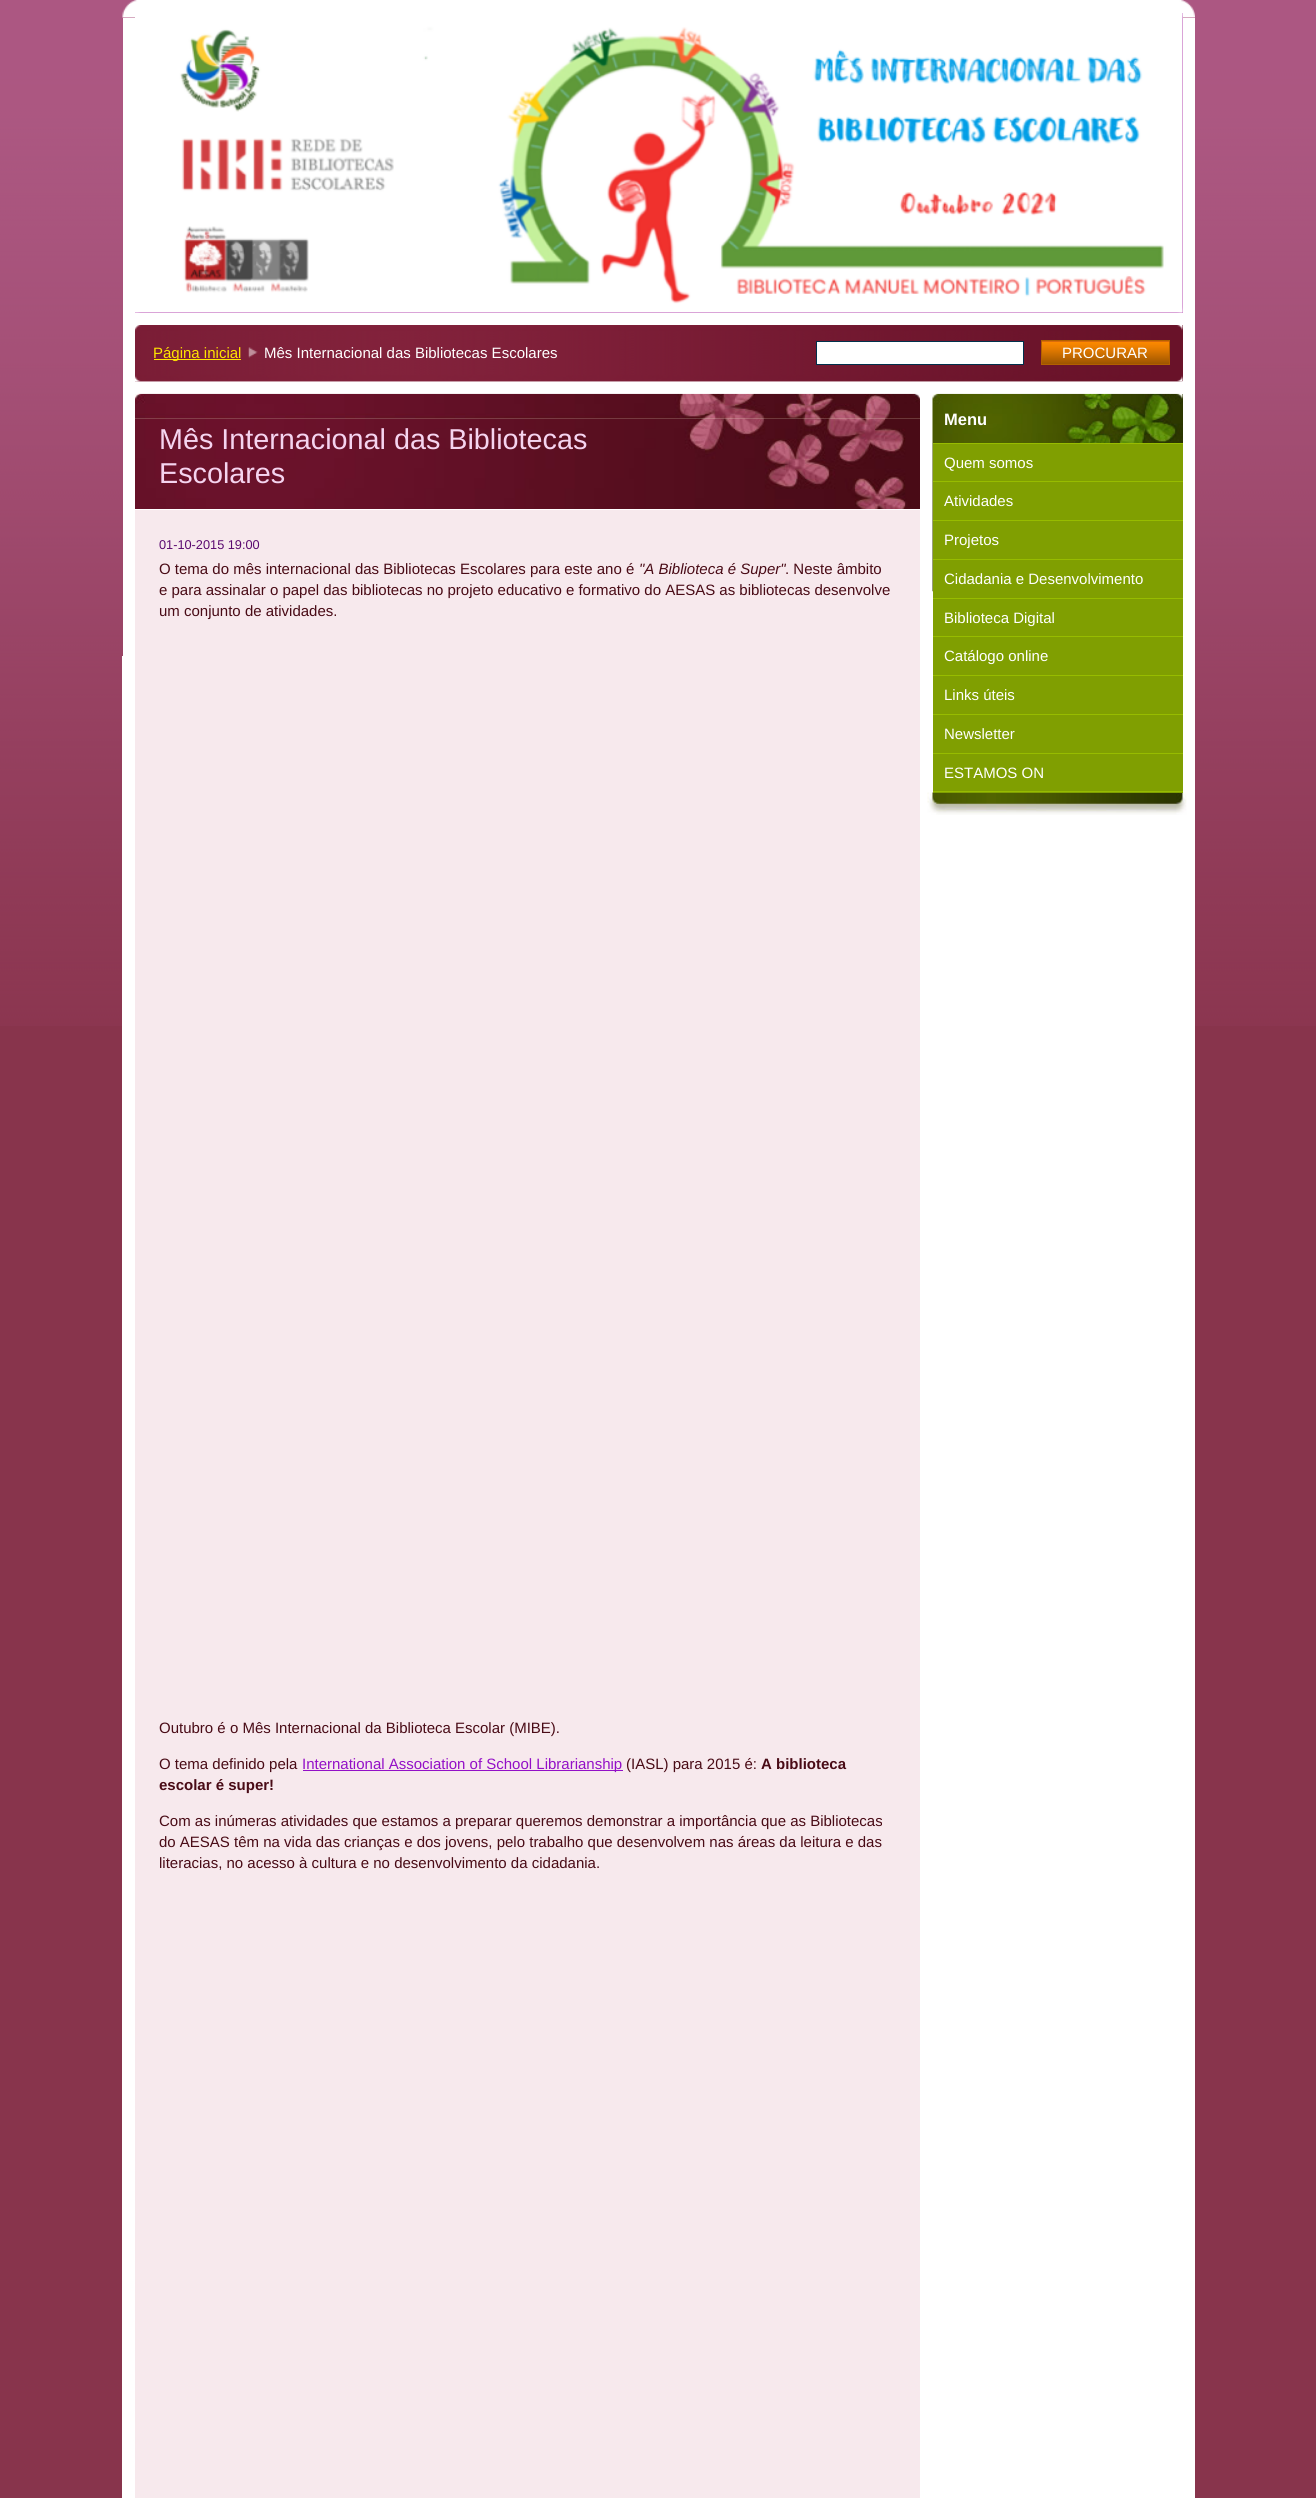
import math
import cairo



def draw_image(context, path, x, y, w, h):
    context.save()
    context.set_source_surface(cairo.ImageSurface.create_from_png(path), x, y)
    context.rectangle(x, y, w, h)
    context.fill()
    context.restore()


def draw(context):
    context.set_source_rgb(136 / 255, 52 / 255, 76 / 255)
    context.paint()
    draw_image(context, "images/1.png", 0, 0, 1316, 1026)
    context.set_source_rgb(1, 1, 254 / 255)
    context.rectangle(122, 656, 1, 1842)
    context.fill()
    draw_image(context, "images/2.png", 122, 0, 1073, 18)
    context.set_source_rgb(1, 1, 1)
    context.rectangle(123, 18, 1072, 2480)
    context.fill()
    context.set_source_rgb(206 / 255, 134 / 255, 203 / 255)
    context.rectangle(135, 13, 1048, 300)
    context.fill()
    draw_image(context, "images/3.png", 135, 13, 1048, 300)
    draw_image(context, "images/4.png", 135, 13, 1048, 300)
    context.set_source_rgb(106 / 255, 19 / 255, 42 / 255)
    context.rectangle(1182, 325, 1, 56)
    context.fill()
    draw_image(context, "images/5.png", 135, 325, 1048, 57)
    draw_image(context, "images/6.png", 135, 375, 1048, 7)
    draw_image(context, "images/7.png", 135, 325, 1048, 6)
    context.set_source_rgb(1, 228 / 255, 0)
    context.rectangle(154, 359, 87, 1)
    context.fill()
    draw_image(context, "images/8.png", 248, 347, 10, 11)
    context.set_source_rgb(1, 1, 1)
    context.rectangle(816.5, 341.5, 207, 23)
    context.fill_preserve()
    context.set_source_rgb(0, 49 / 255, 76 / 255)
    context.set_line_width(1)
    context.stroke()
    draw_image(context, "images/9.png", 1042, 341, 127, 23)
    context.rectangle(1041.5, 340.5, 128, 24)
    context.set_source_rgb(178 / 255, 96 / 255, 0)
    context.stroke()
    context.set_source_rgb(247 / 255, 233 / 255, 237 / 255)
    context.rectangle(135, 510, 785, 1988)
    context.fill()
    draw_image(context, "images/10.png", 135, 393, 785, 26)
    draw_image(context, "images/11.png", 135, 418, 785, 91)
    context.set_source_rgb(147 / 255, 16 / 255, 199 / 255)
    context.rectangle(303, 1770, 320, 1)
    context.fill()
    draw_image(context, "images/12.png", 927, 792, 260, 23)
    context.set_source_rgb(43 / 255, 53 / 255, 0)
    context.rectangle(1182, 394, 1, 49)
    context.fill()
    draw_image(context, "images/13.png", 932, 393, 251, 199)
    context.set_source_rgb(128 / 255, 159 / 255, 1 / 255)
    context.rectangle(933, 444, 250, 349)
    context.fill()
    context.set_source_rgb(151 / 255, 188 / 255, 0)
    context.rectangle(933, 443, 250, 1)
    context.fill()
    context.rectangle(933, 481, 250, 1)
    context.fill()
    context.rectangle(933, 520, 250, 1)
    context.fill()
    context.rectangle(933, 559, 250, 1)
    context.fill()
    context.rectangle(933, 598, 250, 1)
    context.fill()
    context.rectangle(933, 636, 250, 1)
    context.fill()
    context.rectangle(933, 675, 250, 1)
    context.fill()
    context.rectangle(933, 714, 250, 1)
    context.fill()
    context.rectangle(933, 753, 250, 1)
    context.fill()
    context.rectangle(933, 791, 250, 1)
    context.fill()
    context.select_font_face("Liberation Sans")
    context.set_font_size(15)
    context.set_source_rgb(1, 228 / 255, 0)
    context.move_to(153, 358)
    context.show_text("Página inicial")
    context.set_source_rgb(1, 1, 1)
    context.move_to(264, 358)
    context.show_text("Mês Internacional das Bibliotecas Escolares")
    context.move_to(1062, 358)
    context.show_text("PROCURAR")
    context.set_font_size(28.75)
    context.set_source_rgb(245 / 255, 212 / 255, 239 / 255)
    context.move_to(159, 449)
    context.show_text("Mês Internacional das Bibliotecas")
    context.move_to(159, 483)
    context.show_text("Escolares")
    context.set_font_size(12.75)
    context.set_source_rgb(90 / 255, 9 / 255, 112 / 255)
    context.move_to(159, 549)
    context.show_text("01-10-2015 19:00")
    context.set_font_size(15)
    context.set_source_rgb(73 / 255, 11 / 255, 22 / 255)
    context.move_to(159, 574)
    context.show_text("O tema do mês internacional das Bibliotecas Escolares para este ano é")
    context.select_font_face("Liberation Sans", cairo.FontSlant.ITALIC)
    context.move_to(639, 574)
    context.show_text("\"A Biblioteca é Super\"")
    context.select_font_face("Liberation Sans")
    context.move_to(785, 574)
    context.show_text(". Neste âmbito")
    context.move_to(159, 595)
    context.show_text("e para assinalar o papel das bibliotecas no projeto educativo e formativo do AESAS as bibliotecas desenvolve")
    context.move_to(159, 616)
    context.show_text("um conjunto de atividades.")
    context.move_to(159, 1733)
    context.show_text("Outubro é o Mês Internacional da Biblioteca Escolar (MIBE).")
    context.move_to(159, 1769)
    context.show_text("O tema definido pela")
    context.set_source_rgb(147 / 255, 16 / 255, 199 / 255)
    context.move_to(302, 1769)
    context.show_text("International Association of School Librarianship")
    context.set_source_rgb(73 / 255, 11 / 255, 22 / 255)
    context.move_to(626, 1769)
    context.show_text("(IASL) para 2015 é:")
    context.select_font_face("Liberation Sans", cairo.FontSlant.NORMAL, cairo.FontWeight.BOLD)
    context.move_to(761, 1769)
    context.show_text("A biblioteca")
    context.move_to(159, 1790)
    context.show_text("escolar é super!")
    context.select_font_face("Liberation Sans")
    context.move_to(159, 1826)
    context.show_text("Com as inúmeras atividades que estamos a preparar queremos demonstrar a importância que as Bibliotecas")
    context.move_to(159, 1847)
    context.show_text("do AESAS têm na vida das crianças e dos jovens, pelo trabalho que desenvolvem nas áreas da leitura e das")
    context.move_to(159, 1868)
    context.show_text("literacias, no acesso à cultura e no desenvolvimento da cidadania.")
    context.select_font_face("Liberation Sans", cairo.FontSlant.NORMAL, cairo.FontWeight.BOLD)
    context.set_font_size(16.5)
    context.set_source_rgb(1, 1, 1)
    context.move_to(944, 425)
    context.show_text("Menu")
    context.select_font_face("Liberation Sans")
    context.set_font_size(15)
    context.move_to(944, 468)
    context.show_text("Quem somos")
    context.move_to(944, 506)
    context.show_text("Atividades")
    context.move_to(944, 545)
    context.show_text("Projetos")
    context.move_to(944, 584)
    context.show_text("Cidadania e Desenvolvimento")
    context.move_to(944, 623)
    context.show_text("Biblioteca Digital")
    context.move_to(944, 661)
    context.show_text("Catálogo online")
    context.move_to(944, 700)
    context.show_text("Links úteis")
    context.move_to(944, 739)
    context.show_text("Newsletter")
    context.move_to(944, 778)
    context.show_text("ESTAMOS ON")


surface = cairo.ImageSurface(cairo.Format.RGB24, 1316, 2498)
context = cairo.Context(surface)
options = cairo.FontOptions()
options.set_hint_metrics(cairo.HintMetrics.OFF)
options.set_hint_style(cairo.HintStyle.NONE)
context.set_font_options(options)
context.set_miter_limit(4)
draw(context)
surface.write_to_png("out.png")
